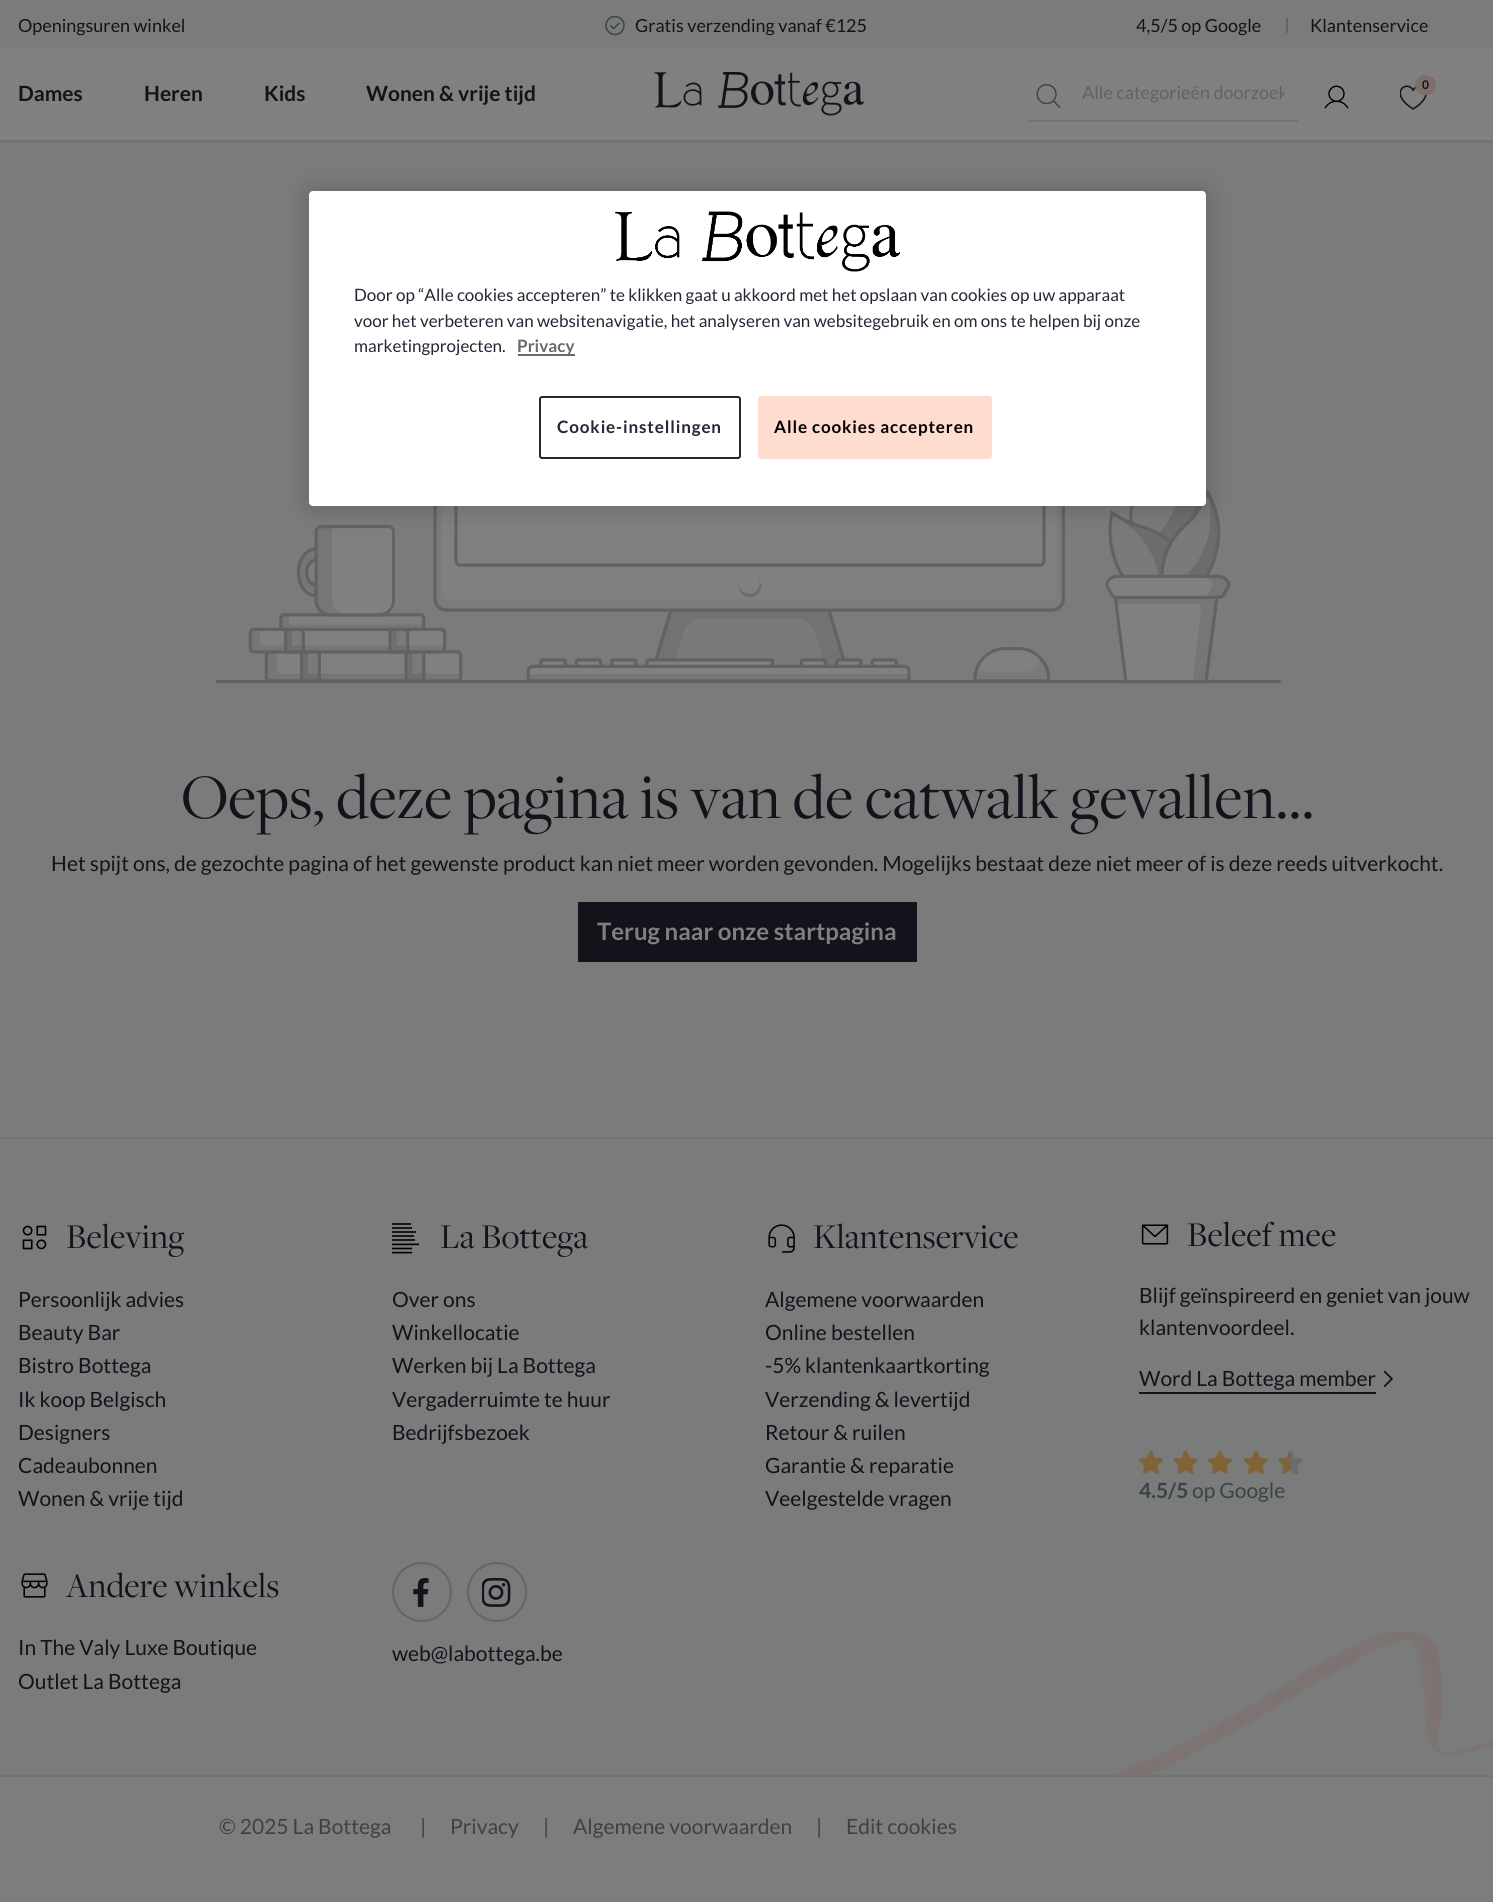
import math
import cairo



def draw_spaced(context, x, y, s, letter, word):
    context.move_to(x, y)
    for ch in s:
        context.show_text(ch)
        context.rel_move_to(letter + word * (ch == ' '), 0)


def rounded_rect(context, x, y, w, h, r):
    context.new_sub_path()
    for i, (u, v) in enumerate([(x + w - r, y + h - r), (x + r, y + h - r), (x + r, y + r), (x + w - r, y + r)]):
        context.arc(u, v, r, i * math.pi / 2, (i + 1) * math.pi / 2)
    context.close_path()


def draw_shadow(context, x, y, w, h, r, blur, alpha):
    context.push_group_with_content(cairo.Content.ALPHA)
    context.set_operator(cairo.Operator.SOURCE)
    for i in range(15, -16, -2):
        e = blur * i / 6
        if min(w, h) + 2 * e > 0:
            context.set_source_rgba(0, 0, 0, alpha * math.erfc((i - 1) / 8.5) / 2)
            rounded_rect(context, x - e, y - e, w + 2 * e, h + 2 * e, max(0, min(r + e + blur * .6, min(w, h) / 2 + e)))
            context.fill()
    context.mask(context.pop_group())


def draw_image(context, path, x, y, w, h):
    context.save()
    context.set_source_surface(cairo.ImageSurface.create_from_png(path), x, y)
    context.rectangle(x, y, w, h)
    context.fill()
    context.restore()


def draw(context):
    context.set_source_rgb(122 / 255, 123 / 255, 123 / 255)
    context.paint()
    draw_image(context, "images/1.png", 605, 15, 20, 21)
    context.set_source_rgb(98 / 255, 102 / 255, 103 / 255)
    context.rectangle(1286, 18, 2, 15)
    context.fill()
    context.set_source_rgb(128 / 255, 128 / 255, 128 / 255)
    context.rectangle(0, 48, 1493, 92)
    context.fill()
    draw_image(context, "images/2.png", 654, 72, 210, 44)
    context.set_source_rgb(113 / 255, 115 / 255, 116 / 255)
    context.rectangle(1028, 120, 270, 2)
    context.fill()
    draw_image(context, "images/3.png", 1036, 84, 25, 24)
    draw_image(context, "images/4.png", 1324, 85, 25, 24)
    draw_image(context, "images/5.png", 1400, 85, 27, 25)
    context.set_source_rgb(127 / 255, 110 / 255, 104 / 255)
    rounded_rect(context, 1415, 75, 21, 20, 10)
    context.fill()
    context.set_source_rgb(113 / 255, 115 / 255, 116 / 255)
    context.rectangle(0, 140, 1493, 3)
    context.fill()
    draw_image(context, "images/7.png", 216, 489, 1065, 195)
    context.set_source_rgb(0, 0, 0)
    draw_shadow(context, 309, 191, 897, 315, 4, 13.5, 0.2)
    context.set_source_rgb(1, 1, 1)
    rounded_rect(context, 309, 191, 897, 315, 4)
    context.fill()
    draw_image(context, "images/6.png", 615, 211, 285, 61)
    context.set_source_rgb(105 / 255, 105 / 255, 105 / 255)
    context.rectangle(518, 354, 57, 2)
    context.fill()
    rounded_rect(context, 540, 397, 200, 61, 2)
    context.set_source_rgb(38 / 255, 38 / 255, 54 / 255)
    context.stroke()
    context.set_source_rgb(254 / 255, 220 / 255, 208 / 255)
    rounded_rect(context, 759, 397, 232, 61, 2)
    context.fill_preserve()
    context.stroke()
    context.set_source_rgb(19 / 255, 19 / 255, 27 / 255)
    context.rectangle(578, 902, 339, 60)
    context.fill()
    context.set_source_rgb(113 / 255, 115 / 255, 116 / 255)
    context.rectangle(0, 1137, 1493, 2)
    context.fill()
    draw_image(context, "images/8.png", 1115, 1631, 378, 144)
    draw_image(context, "images/9.png", 22, 1225, 25, 25)
    draw_image(context, "images/10.png", 392, 1223, 27, 31)
    draw_image(context, "images/11.png", 768, 1224, 27, 29)
    draw_image(context, "images/12.png", 21, 1573, 27, 25)
    context.arc(422, 1592, 29, 0, 2 * math.pi)
    context.set_source_rgb(98 / 255, 102 / 255, 103 / 255)
    context.stroke()
    draw_image(context, "images/13.png", 413, 1578, 16, 29)
    context.arc(497, 1592, 29, 0, 2 * math.pi)
    context.stroke()
    draw_image(context, "images/14.png", 482, 1578, 29, 29)
    draw_image(context, "images/15.png", 1141, 1224, 28, 21)
    context.set_source_rgb(19 / 255, 19 / 255, 27 / 255)
    context.rectangle(1139, 1392, 237, 2)
    context.fill()
    draw_image(context, "images/16.png", 1383, 1370, 10, 17)
    draw_image(context, "images/17.png", 1139, 1451, 24, 23)
    draw_image(context, "images/18.png", 1173, 1451, 25, 23)
    draw_image(context, "images/17.png", 1208, 1451, 24, 23)
    draw_image(context, "images/17.png", 1244, 1451, 24, 23)
    draw_image(context, "images/19.png", 1278, 1451, 24, 23)
    draw_image(context, "images/20.png", 1290, 1451, 13, 23)
    context.set_source_rgb(125 / 255, 125 / 255, 125 / 255)
    context.rectangle(0, 1777, 1493, 125)
    context.fill()
    context.set_source_rgb(113 / 255, 115 / 255, 116 / 255)
    context.rectangle(0, 1775, 1493, 2)
    context.fill()
    context.select_font_face("Lato")
    context.set_font_size(18)
    context.set_source_rgb(19 / 255, 19 / 255, 27 / 255)
    context.move_to(18, 32)
    context.show_text("Openingsuren winkel")
    context.move_to(635, 32)
    context.show_text("Gratis verzending vanaf €125")
    context.move_to(1136, 32)
    context.show_text("4,5/5 op Google")
    context.move_to(1310, 32)
    context.show_text("Klantenservice")
    context.select_font_face("Lato", cairo.FontSlant.NORMAL, cairo.FontWeight.BOLD)
    context.set_font_size(21)
    context.move_to(18, 101)
    context.show_text("Dames")
    context.move_to(144, 101)
    context.show_text("Heren")
    context.move_to(264, 101)
    context.show_text("Kids")
    context.move_to(366, 101)
    context.show_text("Wonen & vrije tijd")
    context.save()
    context.rectangle(1082, 81, 202, 23)
    context.clip()
    context.select_font_face("Lato")
    context.set_font_size(18)
    context.set_source_rgb(98 / 255, 98 / 255, 98 / 255)
    context.move_to(1082, 99)
    context.show_text("Alle categorieën doorzoek")
    context.restore()
    context.set_font_size(12)
    context.move_to(1422, 89)
    context.show_text("0")
    context.select_font_face("Lato")
    context.set_font_size(17.05)
    context.set_source_rgb(38 / 255, 38 / 255, 54 / 255)
    context.move_to(354, 301)
    context.show_text("Door op “Alle cookies accepteren” te klikken gaat u akkoord met het opslaan van cookies op uw apparaat")
    context.move_to(354, 327)
    context.show_text("voor het verbeteren van websitenavigatie, het analyseren van websitegebruik en om ons te helpen bij onze")
    context.move_to(354, 352)
    context.show_text("marketingprojecten.")
    context.select_font_face("Lato", cairo.FontSlant.NORMAL, cairo.FontWeight.BOLD)
    context.set_source_rgb(105 / 255, 105 / 255, 105 / 255)
    context.move_to(517, 352)
    context.show_text("Privacy")
    context.set_source_rgb(38 / 255, 38 / 255, 54 / 255)
    draw_spaced(context, 557, 433, "Cookie-instellingen", 0.85, 0)
    context.set_source_rgb(0, 0, 0)
    draw_spaced(context, 774, 433, "Alle cookies accepteren", 0.85, 0)
    context.select_font_face("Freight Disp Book")
    context.set_font_size(65.6)
    context.set_source_rgb(19 / 255, 19 / 255, 27 / 255)
    context.move_to(181, 818)
    context.show_text("Oeps, deze pagina is van de catwalk gevallen...")
    context.select_font_face("Lato")
    context.set_font_size(21)
    context.move_to(51, 871)
    context.show_text("Het spijt ons, de gezochte pagina of het gewenste product kan niet meer worden gevonden. Mogelijks bestaat deze niet meer of is deze reeds uitverkocht.")
    context.select_font_face("Lato", cairo.FontSlant.NORMAL, cairo.FontWeight.BOLD)
    context.set_font_size(24)
    context.set_source_rgb(128 / 255, 128 / 255, 128 / 255)
    context.move_to(597, 940)
    context.show_text("Terug naar onze startpagina")
    context.select_font_face("Freight Disp Book")
    context.set_font_size(36)
    context.set_source_rgb(19 / 255, 19 / 255, 27 / 255)
    context.move_to(66, 1248)
    context.show_text("Beleving")
    context.select_font_face("Lato")
    context.set_font_size(21)
    context.move_to(18, 1307)
    context.show_text("Persoonlijk advies")
    context.move_to(18, 1340)
    context.show_text("Beauty Bar")
    context.move_to(18, 1373)
    context.show_text("Bistro Bottega")
    context.move_to(18, 1407)
    context.show_text("Ik koop Belgisch")
    context.move_to(18, 1440)
    context.show_text("Designers")
    context.move_to(18, 1473)
    context.show_text("Cadeaubonnen")
    context.move_to(18, 1506)
    context.show_text("Wonen & vrije tijd")
    context.select_font_face("Freight Disp Book")
    context.set_font_size(36)
    context.move_to(440, 1248)
    context.show_text("La Bottega")
    context.select_font_face("Lato")
    context.set_font_size(21)
    context.move_to(392, 1307)
    context.show_text("Over ons")
    context.move_to(392, 1340)
    context.show_text("Winkellocatie")
    context.move_to(392, 1373)
    context.show_text("Werken bij La Bottega")
    context.move_to(392, 1407)
    context.show_text("Vergaderruimte te huur")
    context.move_to(392, 1440)
    context.show_text("Bedrijfsbezoek")
    context.select_font_face("Freight Disp Book")
    context.set_font_size(36)
    context.move_to(813, 1248)
    context.show_text("Klantenservice")
    context.select_font_face("Lato")
    context.set_font_size(21)
    context.move_to(765, 1307)
    context.show_text("Algemene voorwaarden")
    context.move_to(765, 1340)
    context.show_text("Online bestellen")
    context.move_to(765, 1373)
    context.show_text("-5% klantenkaartkorting")
    context.move_to(765, 1407)
    context.show_text("Verzending & levertijd")
    context.move_to(765, 1440)
    context.show_text("Retour & ruilen")
    context.move_to(765, 1473)
    context.show_text("Garantie & reparatie")
    context.move_to(765, 1506)
    context.show_text("Veelgestelde vragen")
    context.select_font_face("Freight Disp Book")
    context.set_font_size(36)
    context.move_to(66, 1597)
    context.show_text("Andere winkels")
    context.select_font_face("Lato")
    context.set_font_size(21)
    context.move_to(18, 1655)
    context.show_text("In The Valy Luxe Boutique")
    context.move_to(18, 1689)
    context.show_text("Outlet La Bottega")
    context.move_to(392, 1661)
    context.show_text("web@labottega.be")
    context.select_font_face("Freight Disp Book")
    context.set_font_size(36)
    context.move_to(1187, 1246)
    context.show_text("Beleef mee")
    context.select_font_face("Lato")
    context.set_font_size(21)
    context.move_to(1139, 1303)
    context.show_text("Blijf geïnspireerd en geniet van jouw")
    context.move_to(1139, 1335)
    context.show_text("klantenvoordeel.")
    context.move_to(1139, 1386)
    context.show_text("Word La Bottega member")
    context.select_font_face("Lato", cairo.FontSlant.NORMAL, cairo.FontWeight.BOLD)
    context.set_source_rgb(61 / 255, 66 / 255, 67 / 255)
    context.move_to(1139, 1498)
    context.show_text("4.5/5")
    context.select_font_face("Lato")
    context.move_to(1192, 1498)
    context.show_text("op Google")
    context.move_to(219, 1834)
    context.show_text("© 2025 La Bottega")
    context.move_to(420, 1834)
    context.show_text("|")
    context.move_to(450, 1834)
    context.show_text("Privacy")
    context.move_to(543, 1834)
    context.show_text("|")
    context.move_to(573, 1834)
    context.show_text("Algemene voorwaarden")
    context.move_to(816, 1834)
    context.show_text("|")
    context.move_to(846, 1834)
    context.show_text("Edit cookies")


surface = cairo.ImageSurface(cairo.Format.RGB24, 1493, 1902)
context = cairo.Context(surface)
options = cairo.FontOptions()
options.set_hint_metrics(cairo.HintMetrics.OFF)
options.set_hint_style(cairo.HintStyle.NONE)
context.set_font_options(options)
context.set_miter_limit(4)
draw(context)
surface.write_to_png("out.png")
